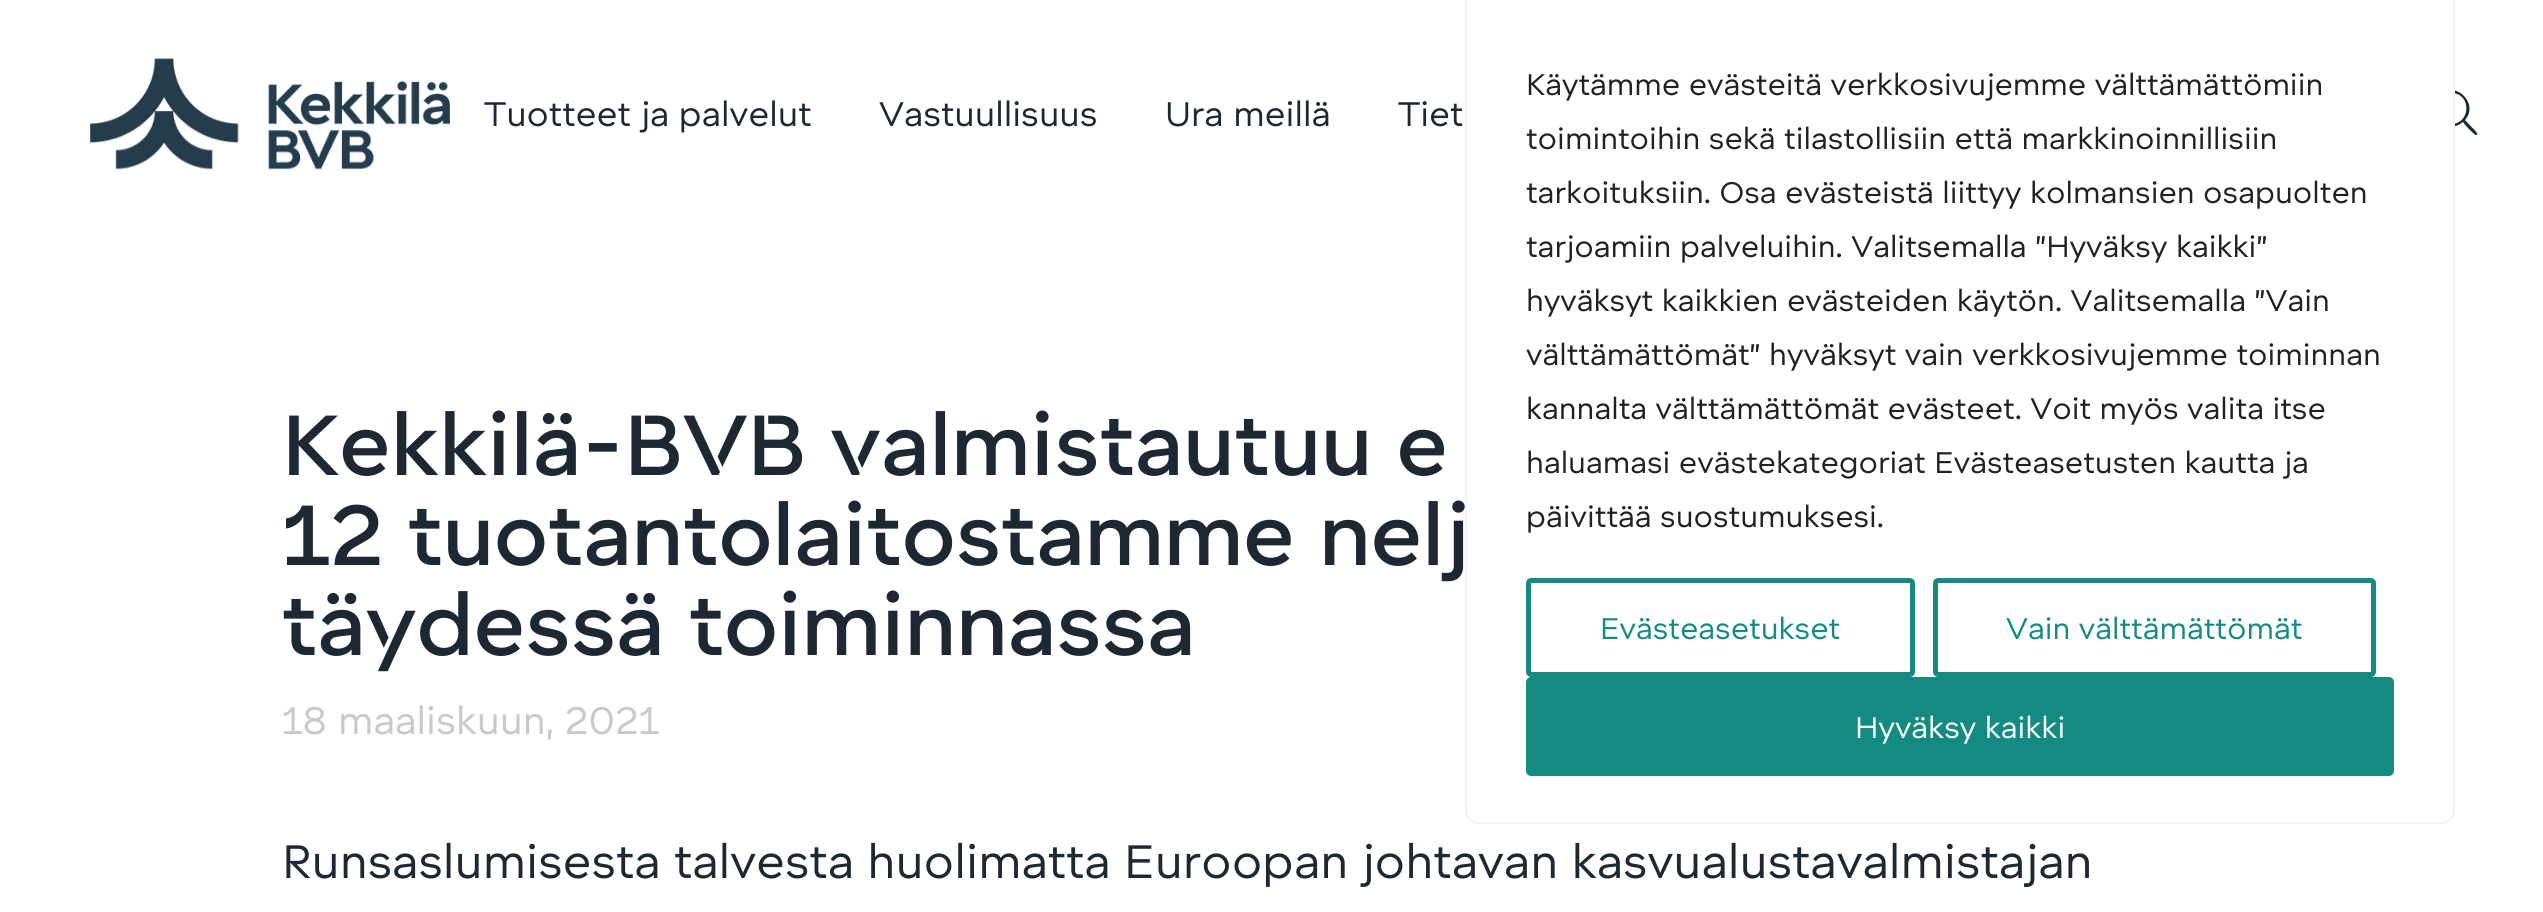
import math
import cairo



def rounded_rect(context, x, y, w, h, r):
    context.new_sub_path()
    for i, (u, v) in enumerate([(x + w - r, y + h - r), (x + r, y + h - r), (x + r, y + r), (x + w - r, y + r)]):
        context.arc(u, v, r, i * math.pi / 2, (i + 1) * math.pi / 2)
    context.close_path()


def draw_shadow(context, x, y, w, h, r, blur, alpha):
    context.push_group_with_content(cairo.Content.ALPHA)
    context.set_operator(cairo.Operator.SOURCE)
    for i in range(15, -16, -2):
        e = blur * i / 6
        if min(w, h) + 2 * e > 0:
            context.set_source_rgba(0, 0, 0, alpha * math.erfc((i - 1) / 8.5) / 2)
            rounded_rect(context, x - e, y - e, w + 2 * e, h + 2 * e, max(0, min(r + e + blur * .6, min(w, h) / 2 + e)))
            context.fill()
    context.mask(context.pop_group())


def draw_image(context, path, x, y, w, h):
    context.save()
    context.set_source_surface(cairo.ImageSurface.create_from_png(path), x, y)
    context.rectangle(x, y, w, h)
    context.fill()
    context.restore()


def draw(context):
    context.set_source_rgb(1, 1, 1)
    context.paint()
    draw_image(context, "images/1.png", 90, 58, 360, 112)
    context.set_source_rgb(30 / 255, 40 / 255, 50 / 255)
    context.new_path()
    context.move_to(2476, 135)
    context.curve_to(2474, 135, 2464, 124, 2463, 122)
    context.curve_to(2445, 137, 2421, 112, 2438, 95)
    context.curve_to(2454, 79, 2480, 103, 2465, 120)
    context.curve_to(2471, 127, 2481, 135, 2476, 135)
    context.close_path()
    context.move_to(2451, 93)
    context.curve_to(2430, 93, 2430, 124, 2451, 124)
    context.curve_to(2471, 124, 2472, 93, 2451, 93)
    context.close_path()
    context.fill()
    context.save()
    rounded_rect(context, 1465, -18, 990, 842, 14)
    context.clip()
    context.set_source_rgb(172 / 255, 171 / 255, 171 / 255)
    draw_shadow(context, 1465, -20, 990, 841, 14, 11, 0.3)
    context.restore()
    context.set_source_rgb(1, 1, 1)
    rounded_rect(context, 1466, -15, 988, 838, 13)
    context.fill_preserve()
    context.set_source_rgb(244 / 255, 244 / 255, 244 / 255)
    context.stroke()
    rounded_rect(context, 1528.5, 580.5, 384, 94, 2.5)
    context.set_source_rgb(20 / 255, 139 / 255, 130 / 255)
    context.set_line_width(5)
    context.stroke()
    rounded_rect(context, 1935.5, 580.5, 438, 94, 2.5)
    context.stroke()
    rounded_rect(context, 1528.5, 679.5, 863, 94, 2.5)
    context.fill_preserve()
    context.stroke()
    context.select_font_face("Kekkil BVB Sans")
    context.set_font_size(36)
    context.set_source_rgb(30 / 255, 40 / 255, 50 / 255)
    context.move_to(484, 126)
    context.show_text("Tuotteet ja palvelut")
    context.move_to(879, 126)
    context.show_text("Vastuullisuus")
    context.move_to(1165, 126)
    context.show_text("Ura meillä")
    context.move_to(1398, 126)
    context.show_text("Tiet")
    context.set_font_size(31.5)
    context.set_source_rgb(33 / 255, 33 / 255, 33 / 255)
    context.move_to(1526, 95)
    context.show_text("Käytämme evästeitä verkkosivujemme välttämättömiin")
    context.move_to(1526, 149)
    context.show_text("toimintoihin sekä tilastollisiin että markkinoinnillisiin")
    context.move_to(1526, 203)
    context.show_text("tarkoituksiin. Osa evästeistä liittyy kolmansien osapuolten")
    context.move_to(1526, 257)
    context.show_text("tarjoamiin palveluihin. Valitsemalla ”Hyväksy kaikki”")
    context.move_to(1526, 311)
    context.show_text("hyväksyt kaikkien evästeiden käytön. Valitsemalla ”Vain")
    context.move_to(1526, 365)
    context.show_text("välttämättömät” hyväksyt vain verkkosivujemme toiminnan")
    context.move_to(1526, 419)
    context.show_text("kannalta välttämättömät evästeet. Voit myös valita itse")
    context.move_to(1526, 473)
    context.show_text("haluamasi evästekategoriat Evästeasetusten kautta ja")
    context.move_to(1526, 527)
    context.show_text("päivittää suostumuksesi.")
    context.set_source_rgb(20 / 255, 139 / 255, 130 / 255)
    context.move_to(1600, 639)
    context.show_text("Evästeasetukset")
    context.move_to(2006, 639)
    context.show_text("Vain välttämättömät")
    context.set_source_rgb(1, 1, 1)
    context.move_to(1855, 738)
    context.show_text("Hyväksy kaikki")
    context.select_font_face("Kekkil BVB Sans Medium")
    context.set_font_size(90)
    context.set_source_rgb(30 / 255, 40 / 255, 50 / 255)
    context.move_to(282, 475)
    context.show_text("Kekkilä-BVB valmistautuu e")
    context.move_to(282, 565)
    context.show_text("12 tuotantolaitostamme nelj")
    context.move_to(282, 655)
    context.show_text("täydessä toiminnassa")
    context.select_font_face("Kekkil BVB Sans")
    context.set_font_size(40.5)
    context.set_source_rgb(199 / 255, 201 / 255, 204 / 255)
    context.move_to(282, 734)
    context.show_text("18 maaliskuun, 2021")
    context.set_font_size(49.5)
    context.set_source_rgb(30 / 255, 40 / 255, 50 / 255)
    context.move_to(282, 878)
    context.show_text("Runsaslumisesta talvesta huolimatta Euroopan johtavan kasvualustavalmistajan")


surface = cairo.ImageSurface(cairo.Format.RGB24, 2543, 912)
context = cairo.Context(surface)
options = cairo.FontOptions()
options.set_hint_metrics(cairo.HintMetrics.OFF)
options.set_hint_style(cairo.HintStyle.NONE)
context.set_font_options(options)
context.set_miter_limit(4)
draw(context)
surface.write_to_png("out.png")
